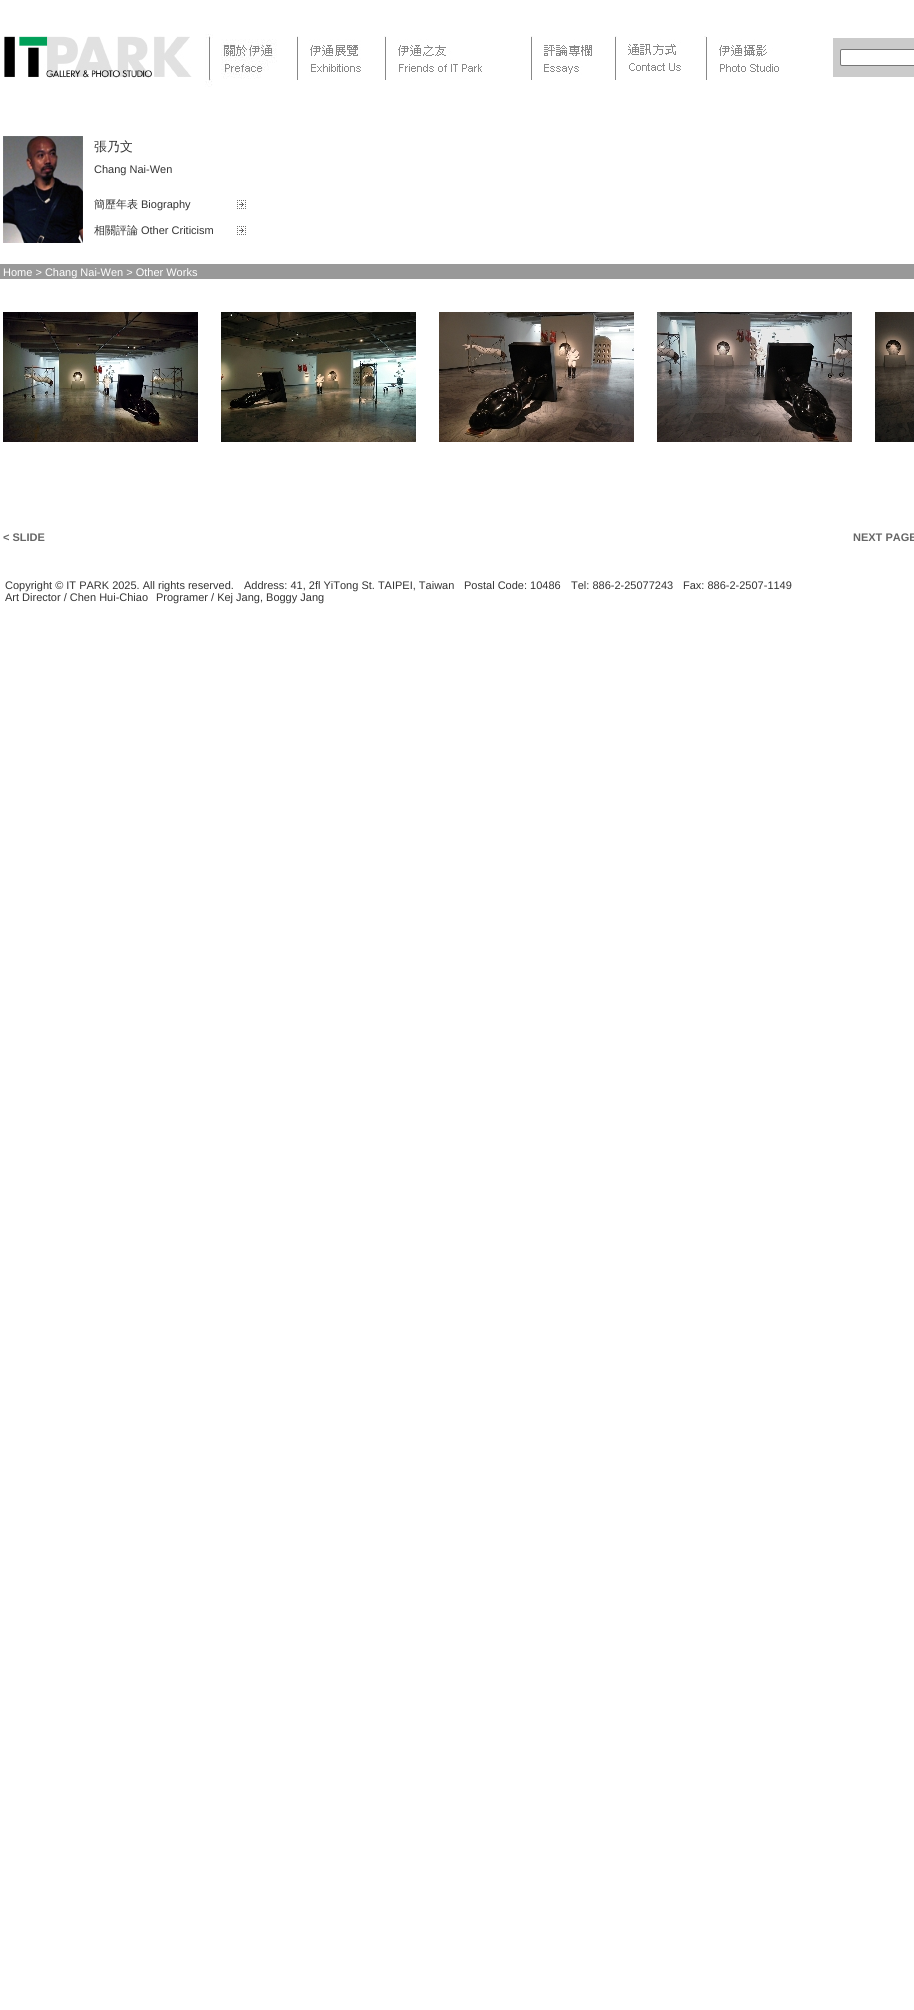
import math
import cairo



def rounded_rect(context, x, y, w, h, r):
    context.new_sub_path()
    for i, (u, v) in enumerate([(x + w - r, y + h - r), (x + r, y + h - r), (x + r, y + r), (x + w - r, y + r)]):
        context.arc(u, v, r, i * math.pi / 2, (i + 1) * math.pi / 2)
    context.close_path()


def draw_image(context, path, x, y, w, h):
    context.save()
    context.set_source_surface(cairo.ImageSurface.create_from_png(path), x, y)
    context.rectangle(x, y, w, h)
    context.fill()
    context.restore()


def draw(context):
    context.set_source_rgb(1, 1, 1)
    context.paint()
    draw_image(context, "images/1.png", 4, 36, 188, 42)
    draw_image(context, "images/2.png", 205, 34, 72, 53)
    draw_image(context, "images/3.png", 297, 36, 64, 44)
    draw_image(context, "images/4.png", 384, 36, 98, 44)
    draw_image(context, "images/5.png", 531, 36, 61, 44)
    draw_image(context, "images/6.png", 615, 36, 66, 44)
    draw_image(context, "images/7.png", 704, 36, 75, 44)
    context.set_source_rgb(203 / 255, 203 / 255, 203 / 255)
    context.rectangle(833, 38, 81, 39)
    context.fill()
    context.set_source_rgb(1, 1, 1)
    rounded_rect(context, 840.5, 49.5, 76, 16, 1.5)
    context.fill_preserve()
    context.set_source_rgb(118 / 255, 118 / 255, 118 / 255)
    context.set_line_width(1)
    context.stroke()
    draw_image(context, "images/8.png", 3, 136, 80, 107)
    draw_image(context, "images/9.png", 237, 200, 9, 9)
    draw_image(context, "images/9.png", 237, 226, 9, 9)
    context.set_source_rgb(153 / 255, 153 / 255, 153 / 255)
    context.rectangle(0, 264, 914, 15)
    context.fill()
    draw_image(context, "images/10.png", 3, 312, 195, 130)
    draw_image(context, "images/11.png", 221, 312, 195, 130)
    draw_image(context, "images/12.png", 439, 312, 195, 130)
    draw_image(context, "images/13.png", 657, 312, 195, 130)
    draw_image(context, "images/14.png", 875, 312, 39, 130)
    context.select_font_face("WenQuanYi Zen Hei Medium")
    context.set_font_size(13)
    context.set_source_rgb(51 / 255, 51 / 255, 51 / 255)
    context.move_to(94, 151)
    context.show_text("張乃文")
    context.select_font_face("Liberation Sans")
    context.set_font_size(11)
    context.move_to(94, 173)
    context.show_text("Chang Nai-Wen")
    context.select_font_face("WenQuanYi Zen Hei Medium")
    context.move_to(94, 208)
    context.show_text("簡歷年表")
    context.select_font_face("Liberation Sans")
    context.move_to(141, 208)
    context.show_text("Biography")
    context.select_font_face("WenQuanYi Zen Hei Medium")
    context.move_to(94, 234)
    context.show_text("相關評論")
    context.select_font_face("Liberation Sans")
    context.move_to(141, 234)
    context.show_text("Other Criticism")
    context.set_source_rgb(1, 1, 1)
    context.move_to(3, 276)
    context.show_text("Home > Chang Nai-Wen > Other Works")
    context.select_font_face("Liberation Sans", cairo.FontSlant.NORMAL, cairo.FontWeight.BOLD)
    context.set_source_rgb(102 / 255, 102 / 255, 102 / 255)
    context.move_to(3, 541)
    context.show_text("< SLIDE")
    context.move_to(853, 541)
    context.show_text("NEXT PAGE")
    context.select_font_face("Liberation Sans")
    context.set_source_rgb(51 / 255, 51 / 255, 51 / 255)
    context.move_to(5, 589)
    context.show_text("Copyright © IT PARK 2025. All rights reserved.")
    context.move_to(244, 589)
    context.show_text("Address: 41, 2fl YiTong St. TAIPEI, Taiwan")
    context.move_to(464, 589)
    context.show_text("Postal Code: 10486")
    context.move_to(571, 589)
    context.show_text("Tel: 886-2-25077243")
    context.move_to(683, 589)
    context.show_text("Fax: 886-2-2507-1149")
    context.move_to(5, 601)
    context.show_text("Art Director / Chen Hui-Chiao")
    context.move_to(156, 601)
    context.show_text("Programer / Kej Jang, Boggy Jang")


surface = cairo.ImageSurface(cairo.Format.RGB24, 914, 2010)
context = cairo.Context(surface)
options = cairo.FontOptions()
options.set_hint_metrics(cairo.HintMetrics.OFF)
options.set_hint_style(cairo.HintStyle.NONE)
context.set_font_options(options)
context.set_miter_limit(4)
draw(context)
surface.write_to_png("out.png")
